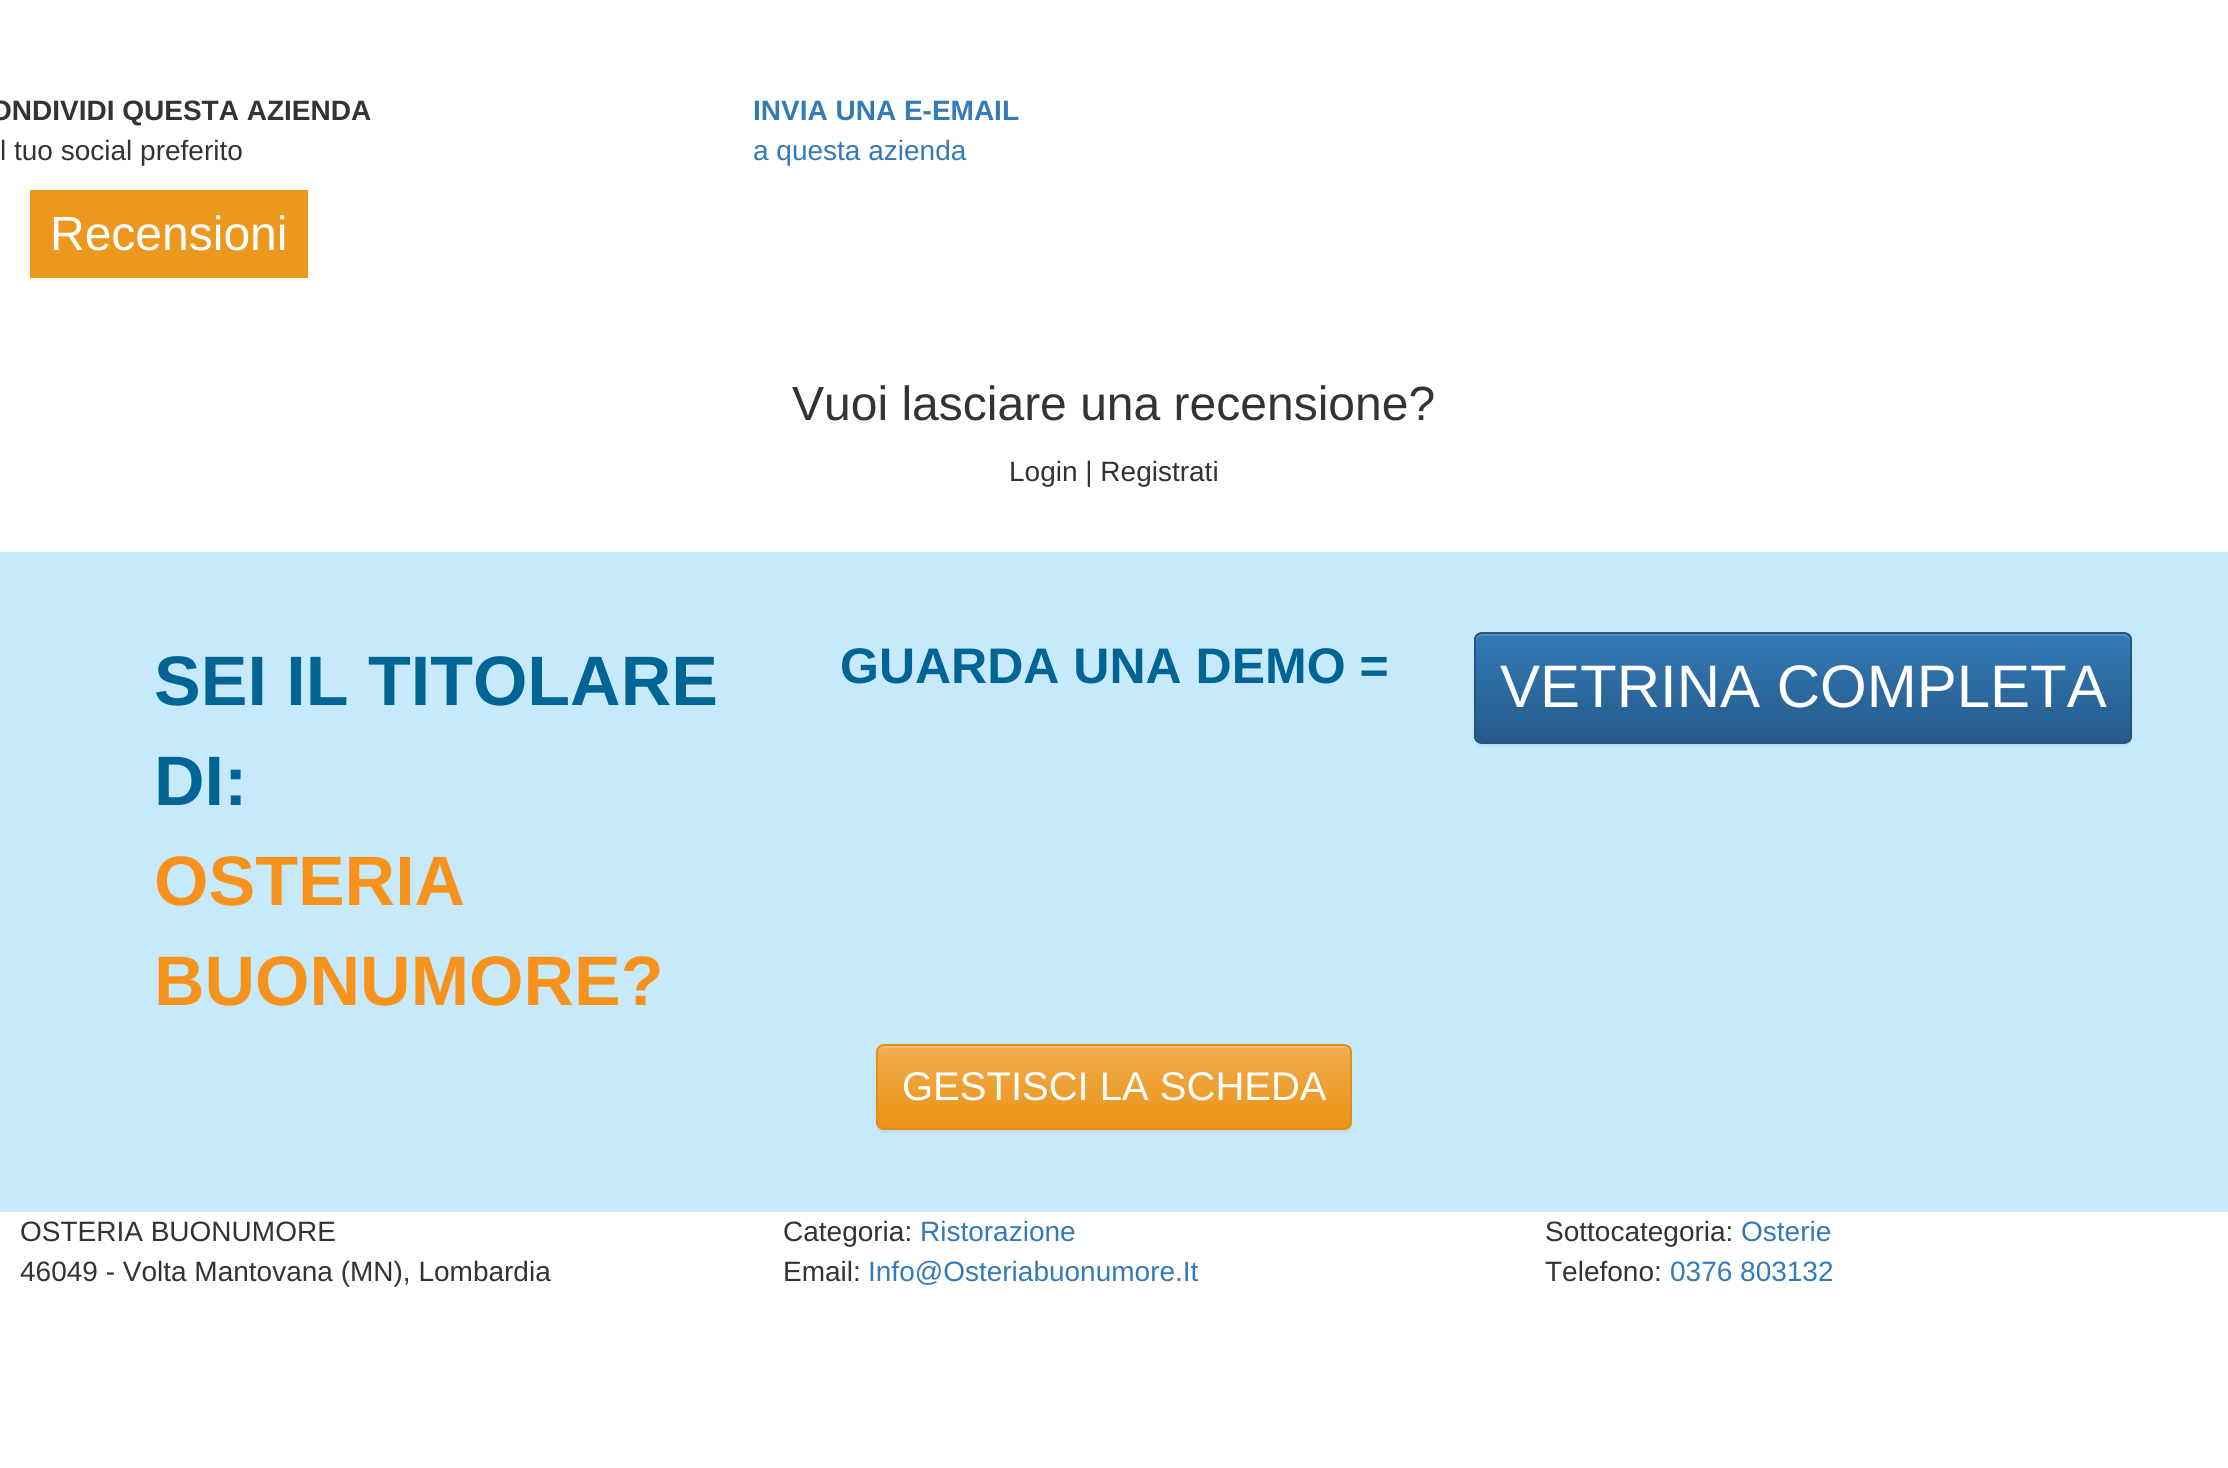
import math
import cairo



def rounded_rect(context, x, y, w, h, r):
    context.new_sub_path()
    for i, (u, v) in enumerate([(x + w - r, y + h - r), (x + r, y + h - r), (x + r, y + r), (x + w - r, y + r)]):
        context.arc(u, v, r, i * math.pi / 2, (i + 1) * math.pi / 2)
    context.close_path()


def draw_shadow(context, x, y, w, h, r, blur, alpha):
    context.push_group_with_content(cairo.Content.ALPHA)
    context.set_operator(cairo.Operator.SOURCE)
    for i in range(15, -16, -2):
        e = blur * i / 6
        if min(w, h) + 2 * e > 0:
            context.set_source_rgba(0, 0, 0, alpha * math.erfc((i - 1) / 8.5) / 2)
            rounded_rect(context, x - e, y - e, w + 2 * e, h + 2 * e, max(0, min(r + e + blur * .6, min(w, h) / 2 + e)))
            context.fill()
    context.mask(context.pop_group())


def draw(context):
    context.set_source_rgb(1, 1, 1)
    context.paint()
    context.set_source_rgb(236 / 255, 151 / 255, 30 / 255)
    context.rectangle(30, 190, 278, 88)
    context.fill()
    context.set_source_rgb(198 / 255, 234 / 255, 251 / 255)
    context.rectangle(0, 552, 2228, 660)
    context.fill()
    context.set_source_rgb(0, 0, 0)
    draw_shadow(context, 1474, 634, 658, 112, 8, 1, 0.07)
    context.save()
    rounded_rect(context, 1474, 632, 658, 112, 8)
    context.clip()
    gradient = cairo.LinearGradient(1803, 634, 1803, 742)
    gradient.add_color_stop_rgba(0, 51 / 255, 122 / 255, 183 / 255, 1)
    gradient.add_color_stop_rgba(1, 38 / 255, 90 / 255, 136 / 255, 1)
    context.set_source(gradient)
    context.rectangle(1474, 634, 658, 108)
    context.fill()
    context.restore()
    context.set_source_rgb(82 / 255, 142 / 255, 193 / 255)
    context.new_path()
    context.move_to(1482, 636)
    context.line_to(2124, 636)
    context.curve_to(2127, 636, 2130, 639, 2130, 642)
    context.curve_to(2130, 638, 2129, 634, 2124, 634)
    context.line_to(1482, 634)
    context.curve_to(1477, 634, 1476, 638, 1476, 642)
    context.curve_to(1476, 639, 1479, 636, 1482, 636)
    context.close_path()
    context.fill()
    rounded_rect(context, 1475, 633, 656, 110, 7)
    context.set_source_rgb(36 / 255, 85 / 255, 128 / 255)
    context.stroke()
    context.set_source_rgb(0, 0, 0)
    draw_shadow(context, 876, 1046, 476, 86, 8, 1, 0.07)
    context.save()
    rounded_rect(context, 876, 1044, 476, 86, 8)
    context.clip()
    gradient = cairo.LinearGradient(1114, 1046, 1114, 1128)
    gradient.add_color_stop_rgba(0, 240 / 255, 173 / 255, 78 / 255, 1)
    gradient.add_color_stop_rgba(1, 235 / 255, 147 / 255, 22 / 255, 1)
    context.set_source(gradient)
    context.rectangle(876, 1046, 476, 82)
    context.fill()
    context.restore()
    context.set_source_rgba(1, 1, 1, 0.15)
    context.new_path()
    context.move_to(884, 1048)
    context.line_to(1344, 1048)
    context.curve_to(1347, 1048, 1350, 1051, 1350, 1054)
    context.curve_to(1350, 1050, 1349, 1046, 1344, 1046)
    context.line_to(884, 1046)
    context.curve_to(879, 1046, 878, 1050, 878, 1054)
    context.curve_to(878, 1051, 881, 1048, 884, 1048)
    context.close_path()
    context.fill()
    rounded_rect(context, 877, 1045, 474, 84, 7)
    context.set_source_rgb(227 / 255, 141 / 255, 19 / 255)
    context.stroke()
    context.select_font_face("Liberation Sans", cairo.FontSlant.NORMAL, cairo.FontWeight.BOLD)
    context.set_font_size(28)
    context.set_source_rgb(51 / 255, 51 / 255, 51 / 255)
    context.move_to(-10, 120)
    context.show_text("ONDIVIDI QUESTA AZIENDA")
    context.select_font_face("Liberation Sans")
    context.move_to(0, 160)
    context.show_text("l tuo social preferito")
    context.select_font_face("Liberation Sans", cairo.FontSlant.NORMAL, cairo.FontWeight.BOLD)
    context.set_source_rgb(51 / 255, 122 / 255, 183 / 255)
    context.move_to(753, 120)
    context.show_text("INVIA UNA E-EMAIL")
    context.select_font_face("Liberation Sans")
    context.move_to(753, 160)
    context.show_text("a questa azienda")
    context.set_font_size(48)
    context.set_source_rgb(1, 1, 1)
    context.move_to(50, 250)
    context.show_text("Recensioni")
    context.set_source_rgb(51 / 255, 51 / 255, 51 / 255)
    context.move_to(792, 420)
    context.show_text("Vuoi lasciare una recensione?")
    context.set_font_size(28)
    context.move_to(1009, 481)
    context.show_text("Login | Registrati")
    context.select_font_face("Liberation Sans", cairo.FontSlant.NORMAL, cairo.FontWeight.BOLD)
    context.set_font_size(70)
    context.set_source_rgb(0, 101 / 255, 149 / 255)
    context.move_to(154, 705)
    context.show_text("SEI IL TITOLARE")
    context.move_to(154, 805)
    context.show_text("DI:")
    context.set_source_rgb(247 / 255, 147 / 255, 29 / 255)
    context.move_to(154, 905)
    context.show_text("OSTERIA")
    context.move_to(154, 1005)
    context.show_text("BUONUMORE?")
    context.set_font_size(50)
    context.set_source_rgb(0, 101 / 255, 149 / 255)
    context.move_to(840, 683)
    context.show_text("GUARDA UNA DEMO =")
    context.select_font_face("Liberation Sans")
    context.set_font_size(60)
    context.set_source_rgb(1, 1, 1)
    context.move_to(1500, 707)
    context.show_text("VETRINA COMPLETA")
    context.set_font_size(40)
    context.move_to(902, 1100)
    context.show_text("GESTISCI LA SCHEDA")
    context.set_font_size(28)
    context.set_source_rgb(51 / 255, 51 / 255, 51 / 255)
    context.move_to(20, 1241)
    context.show_text("OSTERIA BUONUMORE")
    context.move_to(20, 1281)
    context.show_text("46049 - Volta Mantovana (MN), Lombardia")
    context.move_to(783, 1241)
    context.show_text("Categoria:")
    context.set_source_rgb(51 / 255, 122 / 255, 183 / 255)
    context.move_to(920, 1241)
    context.show_text("Ristorazione")
    context.set_source_rgb(51 / 255, 51 / 255, 51 / 255)
    context.move_to(783, 1281)
    context.show_text("Email:")
    context.set_source_rgb(51 / 255, 122 / 255, 183 / 255)
    context.move_to(868, 1281)
    context.show_text("Info@Osteriabuonumore.It")
    context.set_source_rgb(51 / 255, 51 / 255, 51 / 255)
    context.move_to(1545, 1241)
    context.show_text("Sottocategoria:")
    context.set_source_rgb(51 / 255, 122 / 255, 183 / 255)
    context.move_to(1741, 1241)
    context.show_text("Osterie")
    context.set_source_rgb(51 / 255, 51 / 255, 51 / 255)
    context.move_to(1545, 1281)
    context.show_text("Telefono:")
    context.set_source_rgb(51 / 255, 122 / 255, 183 / 255)
    context.move_to(1670, 1281)
    context.show_text("0376 803132")


surface = cairo.ImageSurface(cairo.Format.RGB24, 2228, 1468)
context = cairo.Context(surface)
options = cairo.FontOptions()
options.set_hint_metrics(cairo.HintMetrics.OFF)
options.set_hint_style(cairo.HintStyle.NONE)
context.set_font_options(options)
context.set_miter_limit(4)
draw(context)
surface.write_to_png("out.png")
